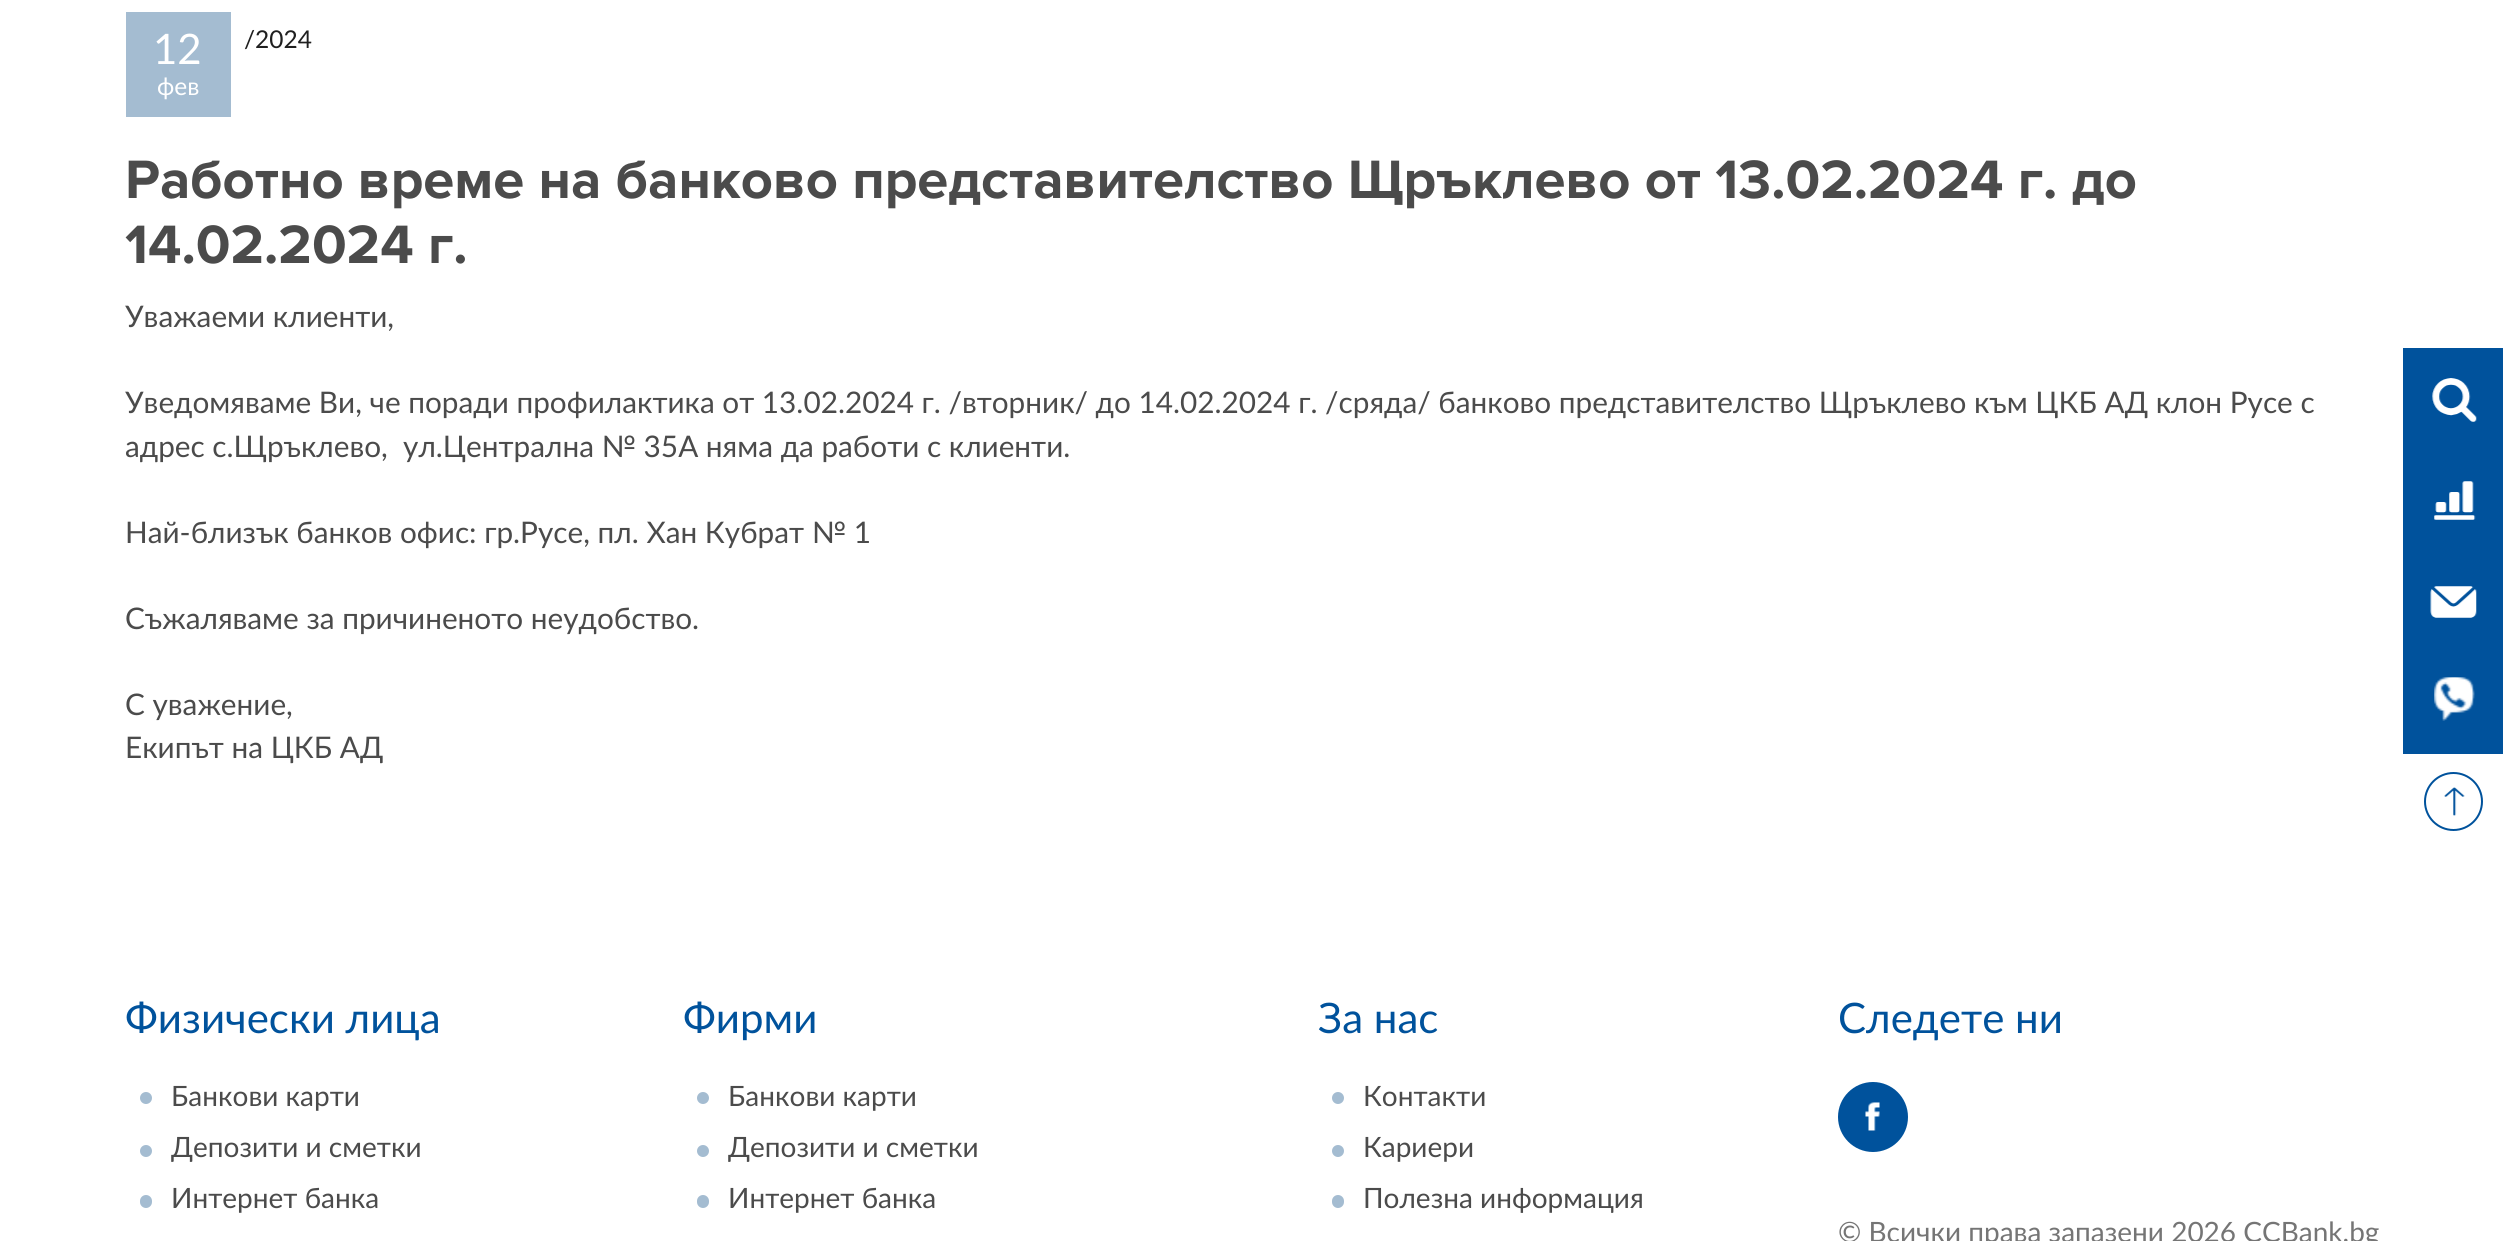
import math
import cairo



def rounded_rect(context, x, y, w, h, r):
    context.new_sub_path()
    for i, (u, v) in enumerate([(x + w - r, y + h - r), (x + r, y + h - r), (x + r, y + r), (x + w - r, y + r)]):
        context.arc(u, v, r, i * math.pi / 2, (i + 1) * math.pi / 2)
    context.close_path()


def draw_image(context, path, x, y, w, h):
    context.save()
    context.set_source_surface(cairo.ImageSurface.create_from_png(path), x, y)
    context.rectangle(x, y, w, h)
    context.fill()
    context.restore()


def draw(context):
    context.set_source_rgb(1, 1, 1)
    context.paint()
    context.set_source_rgb(164 / 255, 188 / 255, 209 / 255)
    context.rectangle(126, 12, 105, 105)
    context.fill()
    context.set_source_rgb(0, 82 / 255, 156 / 255)
    context.rectangle(2403, 348, 100, 406)
    context.fill()
    draw_image(context, "images/1.png", 2432, 378, 45, 44)
    draw_image(context, "images/2.png", 2434, 481, 42, 39)
    draw_image(context, "images/3.png", 2430, 586, 47, 32)
    draw_image(context, "images/4.png", 2434, 677, 41, 44)
    context.arc(2453.5, 801.5, 28.5, 0, 2 * math.pi)
    context.stroke()
    draw_image(context, "images/5.png", 2444, 787, 21, 29)
    context.set_source_rgb(164 / 255, 188 / 255, 209 / 255)
    context.arc(146, 1098, 6, 0, 2 * math.pi)
    context.fill()
    context.arc(146, 1151, 6, 0, 2 * math.pi)
    context.fill()
    rounded_rect(context, 140, 1195, 12, 13, 6)
    context.fill()
    context.arc(703, 1098, 6, 0, 2 * math.pi)
    context.fill()
    context.arc(703, 1151, 6, 0, 2 * math.pi)
    context.fill()
    rounded_rect(context, 697, 1195, 12, 13, 6)
    context.fill()
    context.arc(1338, 1098, 6, 0, 2 * math.pi)
    context.fill()
    context.arc(1338, 1151, 6, 0, 2 * math.pi)
    context.fill()
    rounded_rect(context, 1332, 1195, 12, 13, 6)
    context.fill()
    context.set_source_rgb(0, 82 / 255, 156 / 255)
    context.arc(1873, 1117, 35, 0, 2 * math.pi)
    context.fill()
    draw_image(context, "images/6.png", 1865, 1102, 15, 29)
    context.select_font_face("Lato")
    context.set_font_size(42)
    context.set_source_rgb(1, 1, 1)
    context.move_to(153, 64)
    context.show_text("12")
    context.set_font_size(24.5)
    context.move_to(157, 95)
    context.show_text("фев")
    context.set_source_rgb(31 / 255, 31 / 255, 31 / 255)
    context.move_to(244, 48)
    context.show_text("/2024")
    context.select_font_face("Proxima Nova", cairo.FontSlant.NORMAL, cairo.FontWeight.BOLD)
    context.set_font_size(56)
    context.set_source_rgb(75 / 255, 75 / 255, 75 / 255)
    context.move_to(125, 198)
    context.show_text("Работно време на банково представителство Щръклево от 13.02.2024 г. до")
    context.move_to(125, 263)
    context.show_text("14.02.2024 г.")
    context.select_font_face("Lato")
    context.set_font_size(29.75)
    context.move_to(125, 327)
    context.show_text("Уважаеми клиенти,")
    context.move_to(125, 413)
    context.show_text("Уведомяваме Ви, че поради профилактика от 13.02.2024 г. /вторник/ до 14.02.2024 г. /сряда/ банково представителство Щръклево към ЦКБ АД клон Русе с")
    context.move_to(125, 457)
    context.show_text("адрес с.Щръклево,  ул.Централна № 35А няма да работи с клиенти.")
    context.move_to(125, 543)
    context.show_text("Най-близък банков офис: гр.Русе, пл. Хан Кубрат № 1")
    context.move_to(125, 629)
    context.show_text("Съжаляваме за причиненото неудобство.")
    context.move_to(125, 715)
    context.show_text("С уважение,")
    context.move_to(125, 758)
    context.show_text("Екипът на ЦКБ АД")
    context.set_font_size(42)
    context.set_source_rgb(0, 82 / 255, 156 / 255)
    context.move_to(125, 1033)
    context.show_text("Физически лица")
    context.set_font_size(28)
    context.set_source_rgb(75 / 255, 75 / 255, 75 / 255)
    context.move_to(171, 1106)
    context.show_text("Банкови карти")
    context.move_to(171, 1157)
    context.show_text("Депозити и сметки")
    context.move_to(171, 1208)
    context.show_text("Интернет банка")
    context.set_font_size(42)
    context.set_source_rgb(0, 82 / 255, 156 / 255)
    context.move_to(683, 1033)
    context.show_text("Фирми")
    context.set_font_size(28)
    context.set_source_rgb(75 / 255, 75 / 255, 75 / 255)
    context.move_to(728, 1106)
    context.show_text("Банкови карти")
    context.move_to(728, 1157)
    context.show_text("Депозити и сметки")
    context.move_to(728, 1208)
    context.show_text("Интернет банка")
    context.set_font_size(42)
    context.set_source_rgb(0, 82 / 255, 156 / 255)
    context.move_to(1318, 1033)
    context.show_text("За нас")
    context.set_font_size(28)
    context.set_source_rgb(75 / 255, 75 / 255, 75 / 255)
    context.move_to(1363, 1106)
    context.show_text("Контакти")
    context.move_to(1363, 1157)
    context.show_text("Кариери")
    context.move_to(1363, 1208)
    context.show_text("Полезна информация")
    context.set_font_size(42)
    context.set_source_rgb(0, 82 / 255, 156 / 255)
    context.move_to(1838, 1033)
    context.show_text("Следете ни")
    context.set_font_size(28)
    context.set_source_rgb(117 / 255, 117 / 255, 117 / 255)
    context.move_to(1838, 1242)
    context.show_text("© Всички права запазени 2026 CCBank.bg")


surface = cairo.ImageSurface(cairo.Format.RGB24, 2503, 1241)
context = cairo.Context(surface)
options = cairo.FontOptions()
options.set_hint_metrics(cairo.HintMetrics.OFF)
options.set_hint_style(cairo.HintStyle.NONE)
context.set_font_options(options)
context.set_miter_limit(4)
draw(context)
surface.write_to_png("out.png")
